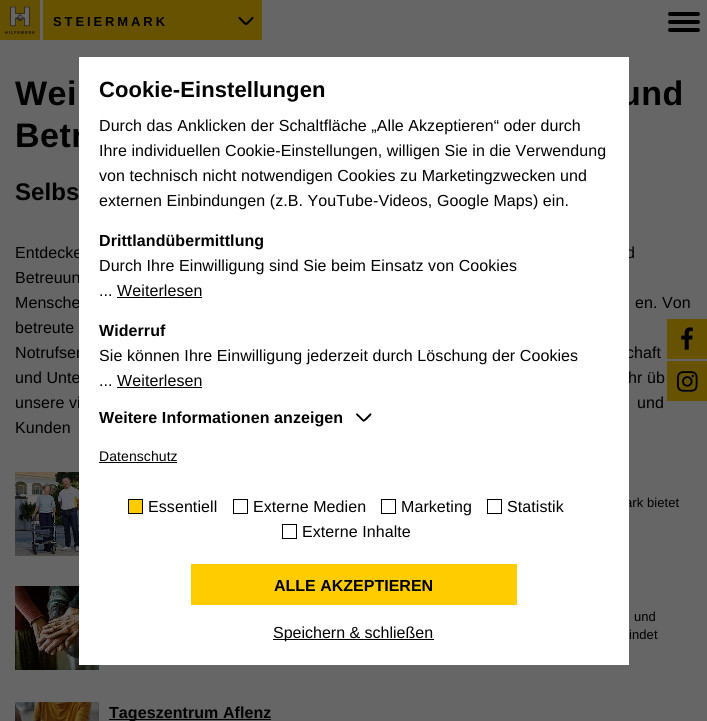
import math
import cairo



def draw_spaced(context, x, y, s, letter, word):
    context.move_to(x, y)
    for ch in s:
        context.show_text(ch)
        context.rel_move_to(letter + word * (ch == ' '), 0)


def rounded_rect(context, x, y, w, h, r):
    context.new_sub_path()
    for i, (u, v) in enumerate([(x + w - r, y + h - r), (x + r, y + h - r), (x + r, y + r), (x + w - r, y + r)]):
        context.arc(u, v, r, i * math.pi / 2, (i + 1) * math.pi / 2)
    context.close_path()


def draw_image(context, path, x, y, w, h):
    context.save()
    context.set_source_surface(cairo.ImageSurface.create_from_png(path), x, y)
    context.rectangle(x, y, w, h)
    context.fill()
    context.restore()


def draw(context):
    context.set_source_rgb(102 / 255, 102 / 255, 102 / 255)
    context.paint()
    draw_image(context, "images/1.png", 0, 0, 40, 40)
    context.set_source_rgb(102 / 255, 82 / 255, 0)
    context.rectangle(43, 0, 219, 40)
    context.fill()
    context.set_source_rgb(0, 0, 0)
    context.new_path()
    context.move_to(240, 17)
    context.line_to(246.5, 23.5)
    context.curve_to(247, 24, 246.5, 25, 246, 25)
    context.curve_to(245, 25.5, 241.5, 21.5, 240.5, 20.5)
    context.curve_to(239.5, 19.5, 237, 17, 239.5, 17)
    context.close_path()
    context.fill()
    context.new_path()
    context.move_to(245.5, 23.5)
    context.line_to(252, 17)
    context.curve_to(252.5, 16.5, 253.5, 17, 253.5, 17.5)
    context.curve_to(254, 18.5, 250, 22, 249, 23)
    context.curve_to(248, 24, 245.5, 26.5, 245.5, 24)
    context.close_path()
    context.fill()
    rounded_rect(context, 668, 12, 32, 4, 2)
    context.fill()
    rounded_rect(context, 668, 20, 32, 4, 2)
    context.fill()
    rounded_rect(context, 668, 28, 32, 4, 2)
    context.fill()
    context.set_source_rgb(102 / 255, 82 / 255, 0)
    context.rectangle(667, 319, 40, 40)
    context.fill()
    draw_image(context, "images/2.png", 681, 327, 12, 23)
    context.rectangle(667, 361, 40, 40)
    context.fill()
    draw_image(context, "images/3.png", 677, 371, 21, 21)
    draw_image(context, "images/4.png", 15, 472, 64, 84)
    draw_image(context, "images/5.png", 15, 586, 84, 84)
    draw_image(context, "images/6.png", 15, 702, 84, 19)
    context.set_source_rgb(0, 0, 0)
    context.rectangle(109, 719, 162, 1)
    context.fill()
    context.select_font_face("Liberation Sans", cairo.FontSlant.NORMAL, cairo.FontWeight.BOLD)
    context.set_font_size(13)
    draw_spaced(context, 53, 26, "STEIERMARK", 2.9, 0)
    context.set_font_size(34)
    draw_spaced(context, 15, 105, "Wei", 0.5, 0)
    draw_spaced(context, 620, 105, "und", 0.5, 0)
    draw_spaced(context, 15, 147, "Betr", 0.5, 0)
    context.set_font_size(24)
    draw_spaced(context, 15, 200, "Selbs", 0.08, 0)
    context.select_font_face("Liberation Sans")
    context.set_font_size(16)
    draw_spaced(context, 15, 258, "Entdecke", 0.08, 0)
    draw_spaced(context, 626, 258, "d", 0.08, 0)
    draw_spaced(context, 15, 283, "Betreuun", 0.08, 0)
    draw_spaced(context, 15, 308, "Mensche", 0.08, 0)
    draw_spaced(context, 635, 308, "en. Von", 0.08, 0)
    draw_spaced(context, 15, 333, "betreute", 0.08, 0)
    draw_spaced(context, 15, 358, "Notrufser", 0.08, 0)
    draw_spaced(context, 626, 358, "chaft", 0.08, 0)
    draw_spaced(context, 15, 383, "und Unte", 0.08, 0)
    draw_spaced(context, 628, 383, "hr üb", 0.08, 0)
    draw_spaced(context, 15, 408, "unsere vi", 0.08, 0)
    draw_spaced(context, 637, 408, "und", 0.08, 0)
    draw_spaced(context, 15, 433, "Kunden", 0.08, 0)
    context.set_font_size(13)
    draw_spaced(context, 625, 507, "ark bietet", 0.08, 0)
    draw_spaced(context, 634, 621, "und", 0.08, 0)
    draw_spaced(context, 629, 639, "indet", 0.08, 0)
    context.select_font_face("Liberation Sans", cairo.FontSlant.NORMAL, cairo.FontWeight.BOLD)
    context.set_font_size(16)
    draw_spaced(context, 109, 718, "Tageszentrum Aflenz", 0.08, 0)
    context.set_source_rgb(1, 1, 1)
    context.rectangle(79, 57, 550, 608)
    context.fill()
    context.set_font_size(22)
    context.set_source_rgb(0, 0, 0)
    draw_spaced(context, 99, 97, "Cookie-Einstellungen", 0.08, 0)
    context.select_font_face("Liberation Sans")
    context.set_font_size(16)
    draw_spaced(context, 99, 131, "Durch das Anklicken der Schaltfläche „Alle Akzeptieren“ oder durch", 0.08, 0)
    draw_spaced(context, 99, 156, "Ihre individuellen Cookie-Einstellungen, willigen Sie in die Verwendung", 0.08, 0)
    draw_spaced(context, 99, 181, "von technisch nicht notwendigen Cookies zu Marketingzwecken und", 0.08, 0)
    draw_spaced(context, 99, 206, "externen Einbindungen (z.B. YouTube-Videos, Google Maps) ein.", 0.08, 0)
    context.select_font_face("Liberation Sans", cairo.FontSlant.NORMAL, cairo.FontWeight.BOLD)
    draw_spaced(context, 99, 246, "Drittlandübermittlung", 0.08, 0)
    context.select_font_face("Liberation Sans")
    draw_spaced(context, 99, 271, "Durch Ihre Einwilligung sind Sie beim Einsatz von Cookies", 0.08, 0)
    draw_spaced(context, 99, 296, "... Weiterlesen", 0.08, 0)
    context.rectangle(112, 297, 90, 1)
    context.fill()
    context.set_source_rgb(1, 1, 1)
    context.rectangle(112, 297, 5, 1)
    context.fill()
    context.select_font_face("Liberation Sans", cairo.FontSlant.NORMAL, cairo.FontWeight.BOLD)
    context.set_source_rgb(0, 0, 0)
    draw_spaced(context, 99, 336, "Widerruf", 0.08, 0)
    context.select_font_face("Liberation Sans")
    draw_spaced(context, 99, 361, "Sie können Ihre Einwilligung jederzeit durch Löschung der Cookies", 0.08, 0)
    draw_spaced(context, 99, 386, "... Weiterlesen", 0.08, 0)
    context.rectangle(112, 387, 90, 1)
    context.fill()
    context.set_source_rgb(1, 1, 1)
    context.rectangle(112, 387, 5, 1)
    context.fill()
    context.select_font_face("Liberation Sans", cairo.FontSlant.NORMAL, cairo.FontWeight.BOLD)
    context.set_source_rgb(0, 0, 0)
    draw_spaced(context, 99, 423, "Weitere Informationen anzeigen", 0.08, 0)
    context.new_path()
    context.move_to(357.5, 413.5)
    context.line_to(364, 420)
    context.curve_to(364.5, 420.5, 364.5, 421.5, 364, 421.5)
    context.curve_to(362.5, 422, 359.5, 418, 358.5, 417)
    context.curve_to(357, 416, 354.5, 413.5, 357, 413.5)
    context.close_path()
    context.fill()
    context.new_path()
    context.move_to(363.5, 420)
    context.line_to(370, 413.5)
    context.curve_to(370.5, 413, 371, 413.5, 371.5, 414)
    context.curve_to(372, 415, 367.5, 418.5, 367, 419.5)
    context.curve_to(365.5, 420.5, 363, 423, 363, 420.5)
    context.close_path()
    context.fill()
    context.select_font_face("Liberation Sans")
    context.set_font_size(14)
    draw_spaced(context, 99, 461, "Datenschutz", 0.08, 0)
    context.rectangle(99, 462, 78, 1)
    context.fill()
    context.set_source_rgb(1, 204 / 255, 0)
    context.rectangle(128.5, 499.5, 14, 14)
    context.fill_preserve()
    context.set_source_rgb(0, 0, 0)
    context.set_line_width(1)
    context.stroke()
    context.set_font_size(16)
    draw_spaced(context, 148, 512, "Essentiell", 0.08, 0)
    context.rectangle(233.5, 499.5, 14, 14)
    context.stroke()
    draw_spaced(context, 253, 512, "Externe Medien", 0.08, 0)
    context.rectangle(381.5, 499.5, 14, 14)
    context.stroke()
    draw_spaced(context, 401, 512, "Marketing", 0.08, 0)
    context.rectangle(487.5, 499.5, 14, 14)
    context.stroke()
    draw_spaced(context, 507, 512, "Statistik", 0.08, 0)
    context.rectangle(282.5, 524.5, 14, 14)
    context.stroke()
    draw_spaced(context, 302, 537, "Externe Inhalte", 0.08, 0)
    context.set_source_rgb(1, 204 / 255, 0)
    context.rectangle(191, 564, 326, 41)
    context.fill()
    context.select_font_face("Liberation Sans", cairo.FontSlant.NORMAL, cairo.FontWeight.BOLD)
    context.set_source_rgb(0, 0, 0)
    context.move_to(274, 591)
    context.show_text("ALLE AKZEPTIEREN")
    context.rectangle(273, 639, 161, 1)
    context.fill()
    context.select_font_face("Liberation Sans")
    context.move_to(273, 638)
    context.show_text("Speichern & schließen")


surface = cairo.ImageSurface(cairo.Format.RGB24, 707, 721)
context = cairo.Context(surface)
options = cairo.FontOptions()
options.set_hint_metrics(cairo.HintMetrics.OFF)
options.set_hint_style(cairo.HintStyle.NONE)
context.set_font_options(options)
context.set_miter_limit(4)
draw(context)
surface.write_to_png("out.png")
